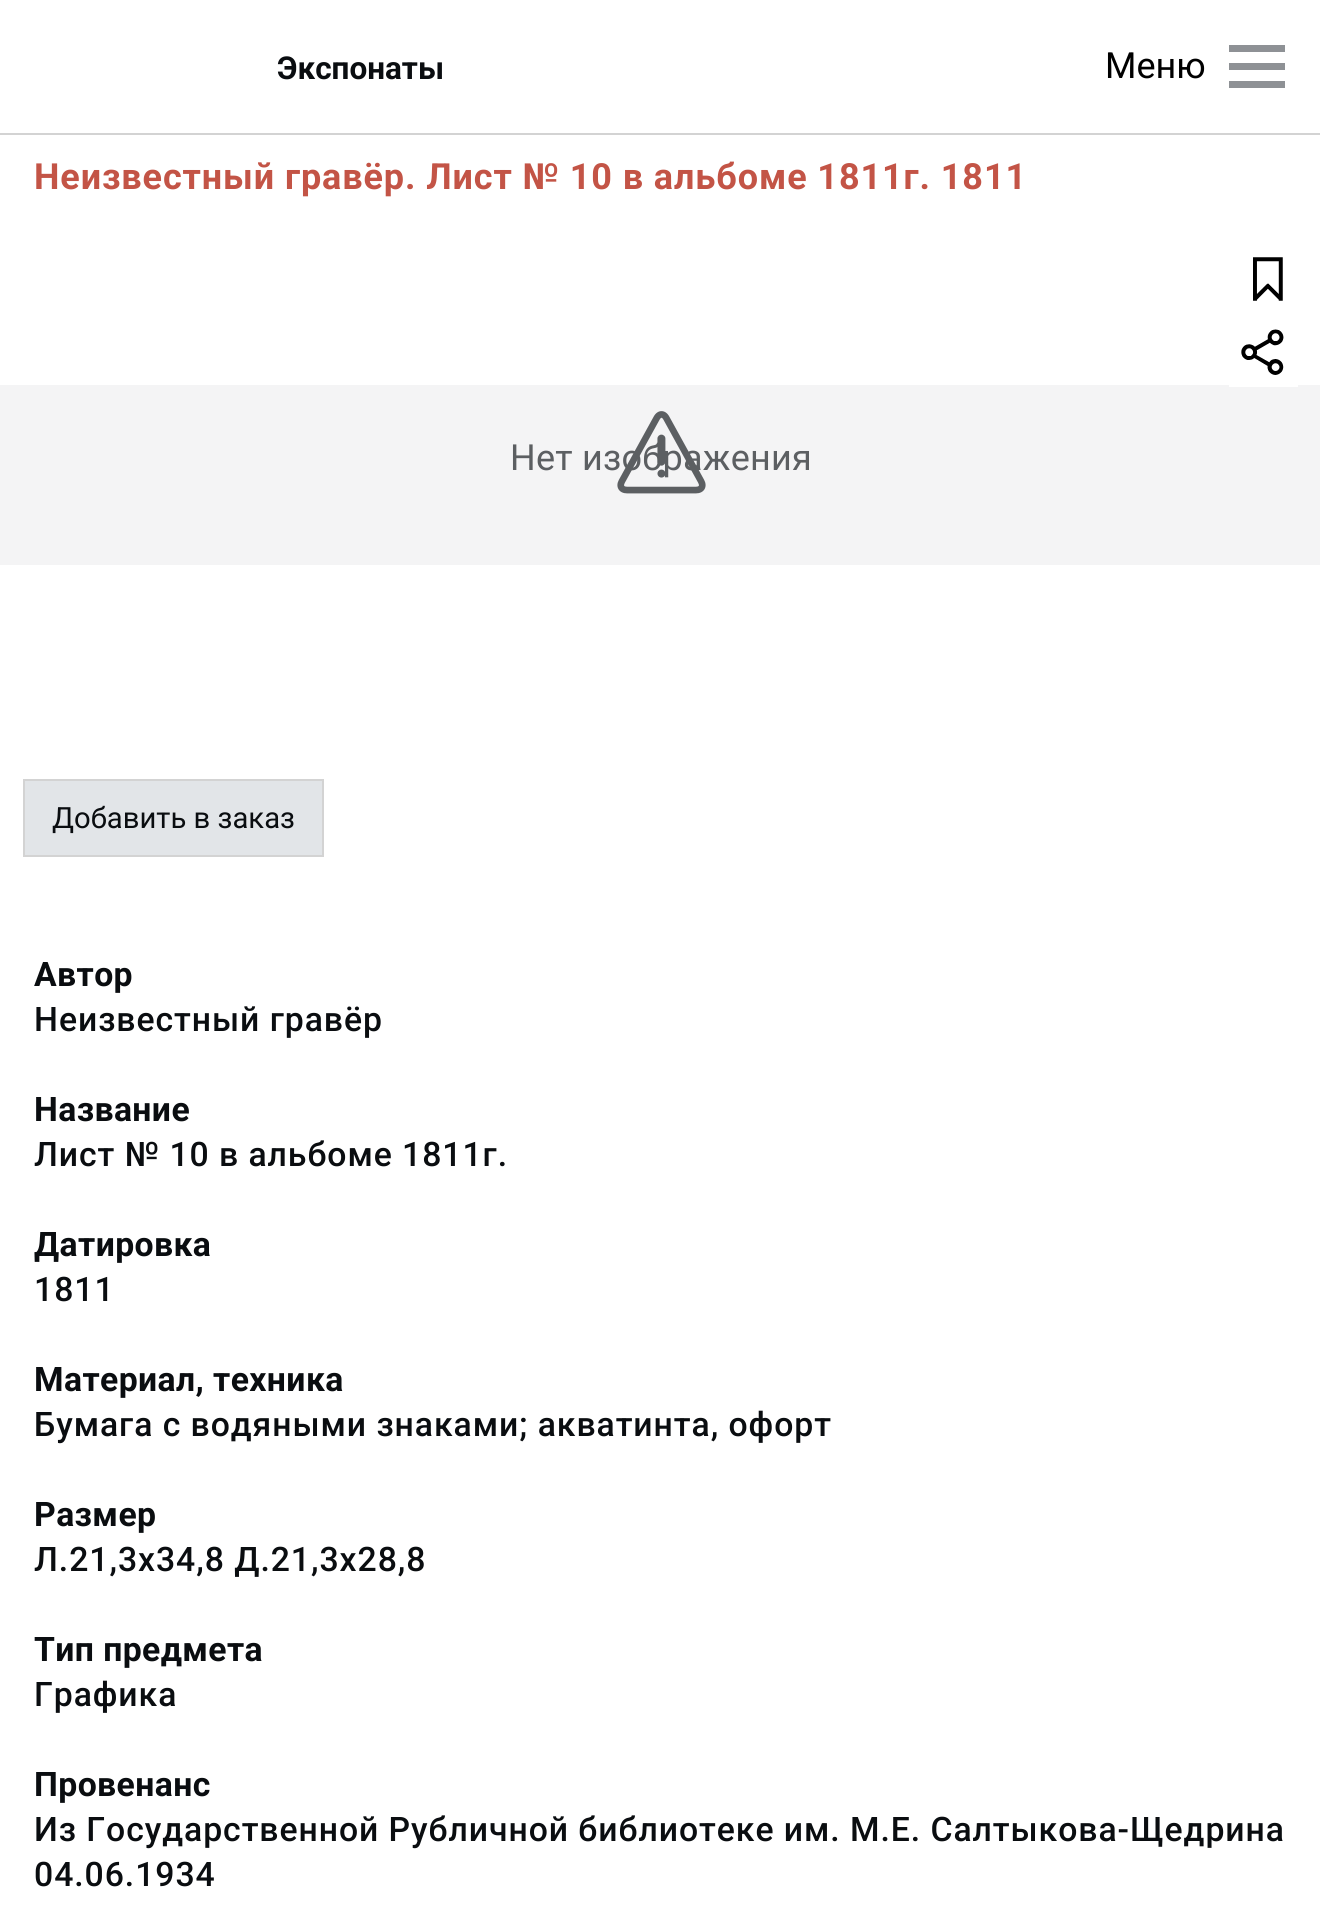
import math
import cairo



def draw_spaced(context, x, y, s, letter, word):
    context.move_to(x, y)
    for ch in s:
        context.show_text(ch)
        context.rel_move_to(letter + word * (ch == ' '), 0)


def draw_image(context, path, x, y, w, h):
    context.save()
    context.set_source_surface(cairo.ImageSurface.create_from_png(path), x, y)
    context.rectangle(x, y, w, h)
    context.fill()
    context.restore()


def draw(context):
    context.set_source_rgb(1, 1, 1)
    context.paint()
    context.set_source_rgb(211 / 255, 211 / 255, 211 / 255)
    context.rectangle(0, 133, 1320, 2)
    context.fill()
    context.set_source_rgb(142 / 255, 145 / 255, 149 / 255)
    context.rectangle(1229, 45, 56, 7)
    context.fill()
    context.rectangle(1229, 63, 56, 7)
    context.fill()
    context.rectangle(1229, 81, 56, 7)
    context.fill()
    context.set_source_rgb(244 / 255, 244 / 255, 245 / 255)
    context.rectangle(0, 385, 1320, 180)
    context.fill()
    context.set_source_rgb(226 / 255, 229 / 255, 232 / 255)
    context.rectangle(24, 780, 299, 76)
    context.fill_preserve()
    context.set_source_rgb(211 / 255, 211 / 255, 211 / 255)
    context.stroke()
    context.set_source_rgb(1, 1, 1)
    context.rectangle(1229, 385, 69, 2)
    context.fill()
    draw_image(context, "images/2.png", 1253, 257, 30, 44)
    draw_image(context, "images/3.png", 1241, 329, 43, 46)
    context.select_font_face("Roboto", cairo.FontSlant.NORMAL, cairo.FontWeight.BOLD)
    context.set_font_size(31.5)
    context.set_source_rgb(10 / 255, 13 / 255, 16 / 255)
    context.move_to(277, 79)
    context.show_text("Экспонаты")
    context.select_font_face("Roboto")
    context.set_font_size(36)
    context.set_source_rgb(0, 0, 0)
    context.move_to(1105, 78)
    context.show_text("Меню")
    context.select_font_face("Roboto", cairo.FontSlant.NORMAL, cairo.FontWeight.BOLD)
    context.set_source_rgb(195 / 255, 84 / 255, 70 / 255)
    draw_spaced(context, 34, 189, "Неизвестный гравёр. Лист № 10 в альбоме 1811г. 1811", 0.9, 0)
    context.select_font_face("Roboto")
    context.set_source_rgb(92 / 255, 95 / 255, 98 / 255)
    draw_spaced(context, 510, 470, "Нет изображения", 0.25, 0)
    draw_image(context, "images/1.png", 617, 411, 89, 83)
    context.set_font_size(29.25)
    context.set_source_rgb(10 / 255, 13 / 255, 16 / 255)
    context.move_to(52, 828)
    context.show_text("Добавить в заказ")
    context.select_font_face("Roboto", cairo.FontSlant.NORMAL, cairo.FontWeight.BOLD)
    context.set_font_size(33.75)
    draw_spaced(context, 34, 986, "Автор", 0.4, 0)
    context.select_font_face("Roboto Medium")
    draw_spaced(context, 34, 1031, "Неизвестный гравёр", 0.95, 0)
    context.select_font_face("Roboto", cairo.FontSlant.NORMAL, cairo.FontWeight.BOLD)
    draw_spaced(context, 34, 1121, "Название", 0.4, 0)
    context.select_font_face("Roboto Medium")
    draw_spaced(context, 34, 1166, "Лист № 10 в альбоме 1811г.", 0.95, 0)
    context.select_font_face("Roboto", cairo.FontSlant.NORMAL, cairo.FontWeight.BOLD)
    draw_spaced(context, 34, 1256, "Датировка", 0.4, 0)
    context.select_font_face("Roboto Medium")
    draw_spaced(context, 34, 1301, "1811", 0.95, 0)
    context.select_font_face("Roboto", cairo.FontSlant.NORMAL, cairo.FontWeight.BOLD)
    draw_spaced(context, 34, 1391, "Материал, техника", 0.4, 0)
    context.select_font_face("Roboto Medium")
    draw_spaced(context, 34, 1436, "Бумага с водяными знаками; акватинта, офорт", 0.95, 0)
    context.select_font_face("Roboto", cairo.FontSlant.NORMAL, cairo.FontWeight.BOLD)
    draw_spaced(context, 34, 1526, "Размер", 0.4, 0)
    context.select_font_face("Roboto Medium")
    draw_spaced(context, 34, 1571, "Л.21,3х34,8 Д.21,3х28,8", 0.95, 0)
    context.select_font_face("Roboto", cairo.FontSlant.NORMAL, cairo.FontWeight.BOLD)
    draw_spaced(context, 34, 1661, "Тип предмета", 0.4, 0)
    context.select_font_face("Roboto Medium")
    draw_spaced(context, 34, 1706, "Графика", 0.95, 0)
    context.select_font_face("Roboto", cairo.FontSlant.NORMAL, cairo.FontWeight.BOLD)
    draw_spaced(context, 34, 1796, "Провенанс", 0.4, 0)
    context.select_font_face("Roboto Medium")
    draw_spaced(context, 34, 1841, "Из Государственной Рубличной библиотеке им. М.Е. Салтыкова-Щедрина", 0.95, 0)
    draw_spaced(context, 34, 1886, "04.06.1934", 0.95, 0)


surface = cairo.ImageSurface(cairo.Format.RGB24, 1320, 1925)
context = cairo.Context(surface)
options = cairo.FontOptions()
options.set_hint_metrics(cairo.HintMetrics.OFF)
options.set_hint_style(cairo.HintStyle.NONE)
context.set_font_options(options)
context.set_miter_limit(4)
draw(context)
surface.write_to_png("out.png")
